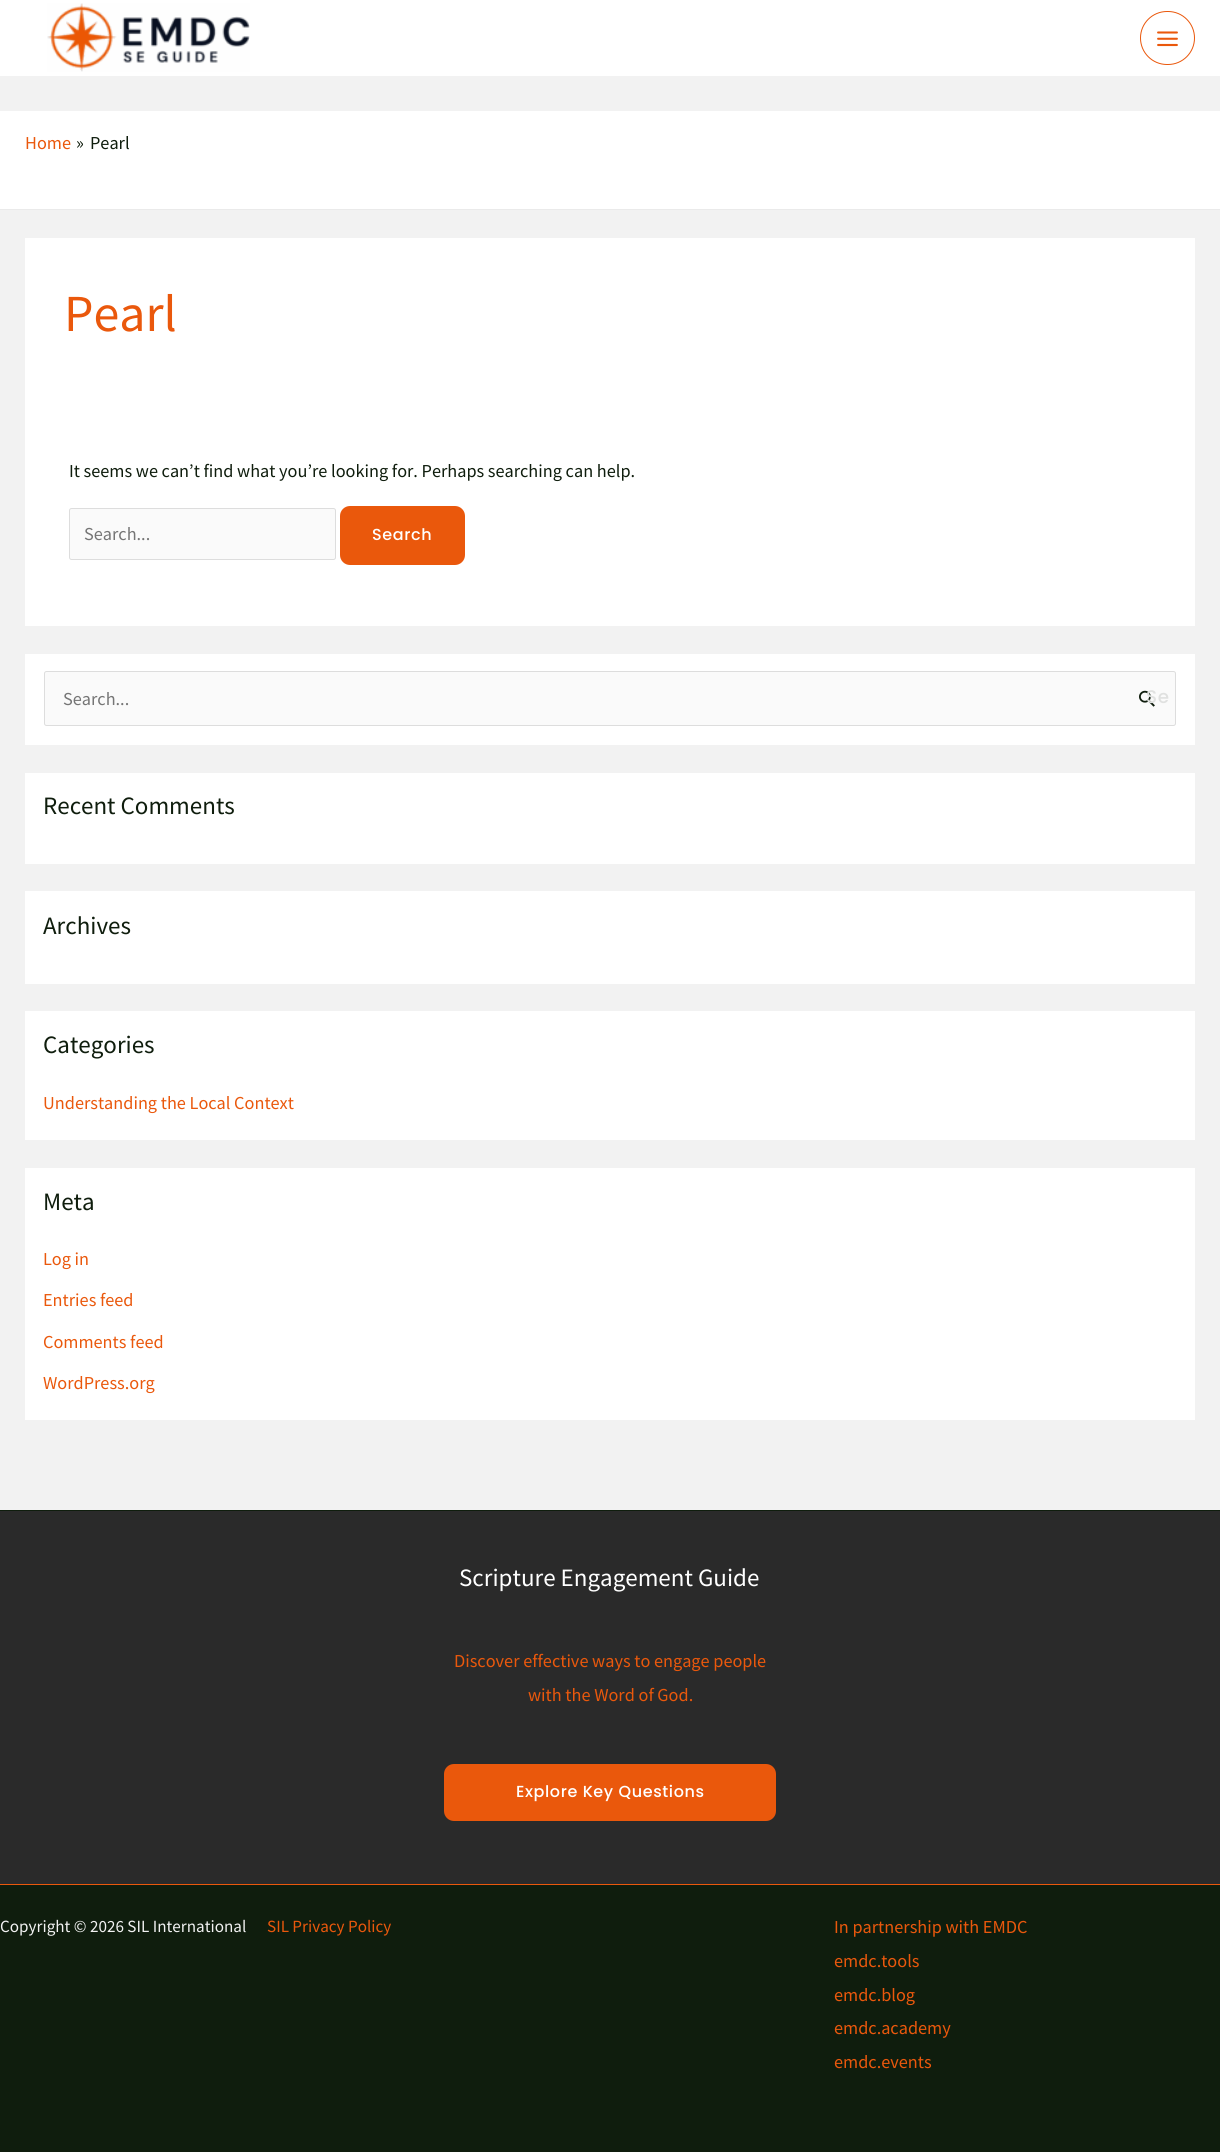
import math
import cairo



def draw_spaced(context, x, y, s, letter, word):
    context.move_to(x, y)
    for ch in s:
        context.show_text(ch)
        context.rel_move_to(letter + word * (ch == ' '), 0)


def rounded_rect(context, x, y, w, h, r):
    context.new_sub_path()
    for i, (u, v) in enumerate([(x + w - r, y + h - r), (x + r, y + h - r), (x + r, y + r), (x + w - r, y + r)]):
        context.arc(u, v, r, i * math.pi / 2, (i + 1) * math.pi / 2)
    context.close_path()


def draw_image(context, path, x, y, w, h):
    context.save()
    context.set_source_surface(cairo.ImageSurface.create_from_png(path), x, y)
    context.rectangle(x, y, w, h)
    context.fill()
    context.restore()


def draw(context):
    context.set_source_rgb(242 / 255, 242 / 255, 242 / 255)
    context.paint()
    context.set_source_rgb(1, 1, 1)
    context.rectangle(0, 0, 1220, 76)
    context.fill()
    draw_image(context, "images/1.png", 47, 3, 203, 69)
    rounded_rect(context, 1140.5, 11.5, 54, 53, 26.5)
    context.set_source_rgb(234 / 255, 88 / 255, 12 / 255)
    context.set_line_width(1)
    context.stroke()
    draw_image(context, "images/2.png", 1157, 31, 21, 16)
    context.set_source_rgb(1, 1, 1)
    context.rectangle(0, 111, 1220, 98)
    context.fill()
    context.set_source_rgb(234 / 255, 234 / 255, 234 / 255)
    context.rectangle(0, 209, 1220, 1)
    context.fill()
    context.set_source_rgb(1, 1, 1)
    context.rectangle(25, 238, 1170, 388)
    context.fill()
    context.set_source_rgb(250 / 255, 250 / 255, 250 / 255)
    rounded_rect(context, 69.5, 508.5, 266, 51, 2)
    context.fill_preserve()
    context.set_source_rgb(221 / 255, 221 / 255, 221 / 255)
    context.stroke()
    context.set_source_rgb(234 / 255, 88 / 255, 12 / 255)
    rounded_rect(context, 340, 506, 125, 59, 10)
    context.fill()
    context.set_source_rgb(1, 1, 1)
    context.rectangle(25, 654, 1170, 91)
    context.fill()
    context.set_source_rgb(250 / 255, 250 / 255, 250 / 255)
    rounded_rect(context, 44.5, 671.5, 1131, 54, 2)
    context.fill_preserve()
    context.set_source_rgb(221 / 255, 221 / 255, 221 / 255)
    context.stroke()
    draw_image(context, "images/3.png", 1139, 690, 16, 17)
    context.set_source_rgb(1, 1, 1)
    context.rectangle(25, 773, 1170, 91)
    context.fill()
    context.rectangle(25, 891, 1170, 93)
    context.fill()
    context.rectangle(25, 1011, 1170, 129)
    context.fill()
    context.rectangle(25, 1168, 1170, 252)
    context.fill()
    context.set_source_rgb(15 / 255, 29 / 255, 13 / 255)
    context.rectangle(0, 1510, 1220, 642)
    context.fill()
    context.set_source_rgb(42 / 255, 42 / 255, 42 / 255)
    context.rectangle(0, 1511, 1220, 373)
    context.fill()
    context.set_source_rgb(234 / 255, 88 / 255, 12 / 255)
    rounded_rect(context, 444, 1764, 332, 57, 10)
    context.fill()
    context.rectangle(0, 1884, 1220, 1)
    context.fill()
    context.select_font_face("Source Sans Pro")
    context.set_font_size(18.25)
    context.move_to(25, 149)
    context.show_text("Home")
    context.set_source_rgb(15 / 255, 29 / 255, 13 / 255)
    context.move_to(76, 149)
    context.show_text("»")
    context.move_to(90, 149)
    context.show_text("Pearl")
    context.set_font_size(52)
    context.set_source_rgb(234 / 255, 88 / 255, 12 / 255)
    context.move_to(64, 331)
    context.show_text("Pearl")
    context.set_font_size(18.25)
    context.set_source_rgb(15 / 255, 29 / 255, 13 / 255)
    context.move_to(69, 477)
    context.show_text("It seems we can’t find what you’re looking for. Perhaps searching can help.")
    context.set_source_rgb(117 / 255, 117 / 255, 117 / 255)
    context.move_to(84, 540)
    context.show_text("Search...")
    context.select_font_face("Poppins Medium")
    context.set_font_size(16)
    context.set_source_rgb(1, 1, 1)
    draw_spaced(context, 372, 540, "Search", 0.6, 0)
    context.select_font_face("Source Sans Pro")
    context.set_font_size(18.25)
    context.set_source_rgb(117 / 255, 117 / 255, 117 / 255)
    context.move_to(63, 705)
    context.show_text("Search...")
    context.select_font_face("Poppins Medium")
    context.set_source_rgb(224 / 255, 225 / 255, 224 / 255)
    draw_spaced(context, 1146, 703, "Se", 0.6, 0)
    context.select_font_face("Source Sans Pro")
    context.set_font_size(25)
    context.set_source_rgb(15 / 255, 29 / 255, 13 / 255)
    context.move_to(43, 814)
    context.show_text("Recent Comments")
    context.move_to(43, 934)
    context.show_text("Archives")
    context.move_to(43, 1053)
    context.show_text("Categories")
    context.set_font_size(18.25)
    context.set_source_rgb(234 / 255, 88 / 255, 12 / 255)
    context.move_to(43, 1109)
    context.show_text("Understanding the Local Context")
    context.set_font_size(25)
    context.set_source_rgb(15 / 255, 29 / 255, 13 / 255)
    context.move_to(43, 1210)
    context.show_text("Meta")
    context.set_font_size(18.25)
    context.set_source_rgb(234 / 255, 88 / 255, 12 / 255)
    context.move_to(43, 1265)
    context.show_text("Log in")
    context.move_to(43, 1306)
    context.show_text("Entries feed")
    context.move_to(43, 1348)
    context.show_text("Comments feed")
    context.move_to(43, 1389)
    context.show_text("WordPress.org")
    context.set_font_size(25)
    context.set_source_rgb(1, 1, 1)
    context.move_to(459, 1586)
    context.show_text("Scripture Engagement Guide")
    context.set_font_size(18.25)
    context.set_source_rgb(234 / 255, 88 / 255, 12 / 255)
    context.move_to(454, 1667)
    context.show_text("Discover effective ways to engage people")
    context.move_to(528, 1701)
    context.show_text("with the Word of God.")
    context.select_font_face("Poppins Medium")
    context.set_font_size(16)
    context.set_source_rgb(1, 1, 1)
    draw_spaced(context, 516, 1797, "Explore Key Questions", 0.6, 0)
    context.select_font_face("Source Sans Pro")
    context.set_font_size(17.1)
    context.set_source_rgb(242 / 255, 242 / 255, 242 / 255)
    context.move_to(0, 1932)
    context.show_text("Copyright © 2026 SIL International")
    context.set_source_rgb(234 / 255, 88 / 255, 12 / 255)
    context.move_to(267, 1932)
    context.show_text("SIL Privacy Policy")
    context.set_font_size(18.25)
    context.move_to(834, 1933)
    context.show_text("In partnership with EMDC")
    context.move_to(834, 1967)
    context.show_text("emdc.tools")
    context.move_to(834, 2001)
    context.show_text("emdc.blog")
    context.move_to(834, 2034)
    context.show_text("emdc.academy")
    context.move_to(834, 2068)
    context.show_text("emdc.events")


surface = cairo.ImageSurface(cairo.Format.RGB24, 1220, 2152)
context = cairo.Context(surface)
options = cairo.FontOptions()
options.set_hint_metrics(cairo.HintMetrics.OFF)
options.set_hint_style(cairo.HintStyle.NONE)
context.set_font_options(options)
context.set_miter_limit(4)
draw(context)
surface.write_to_png("out.png")
